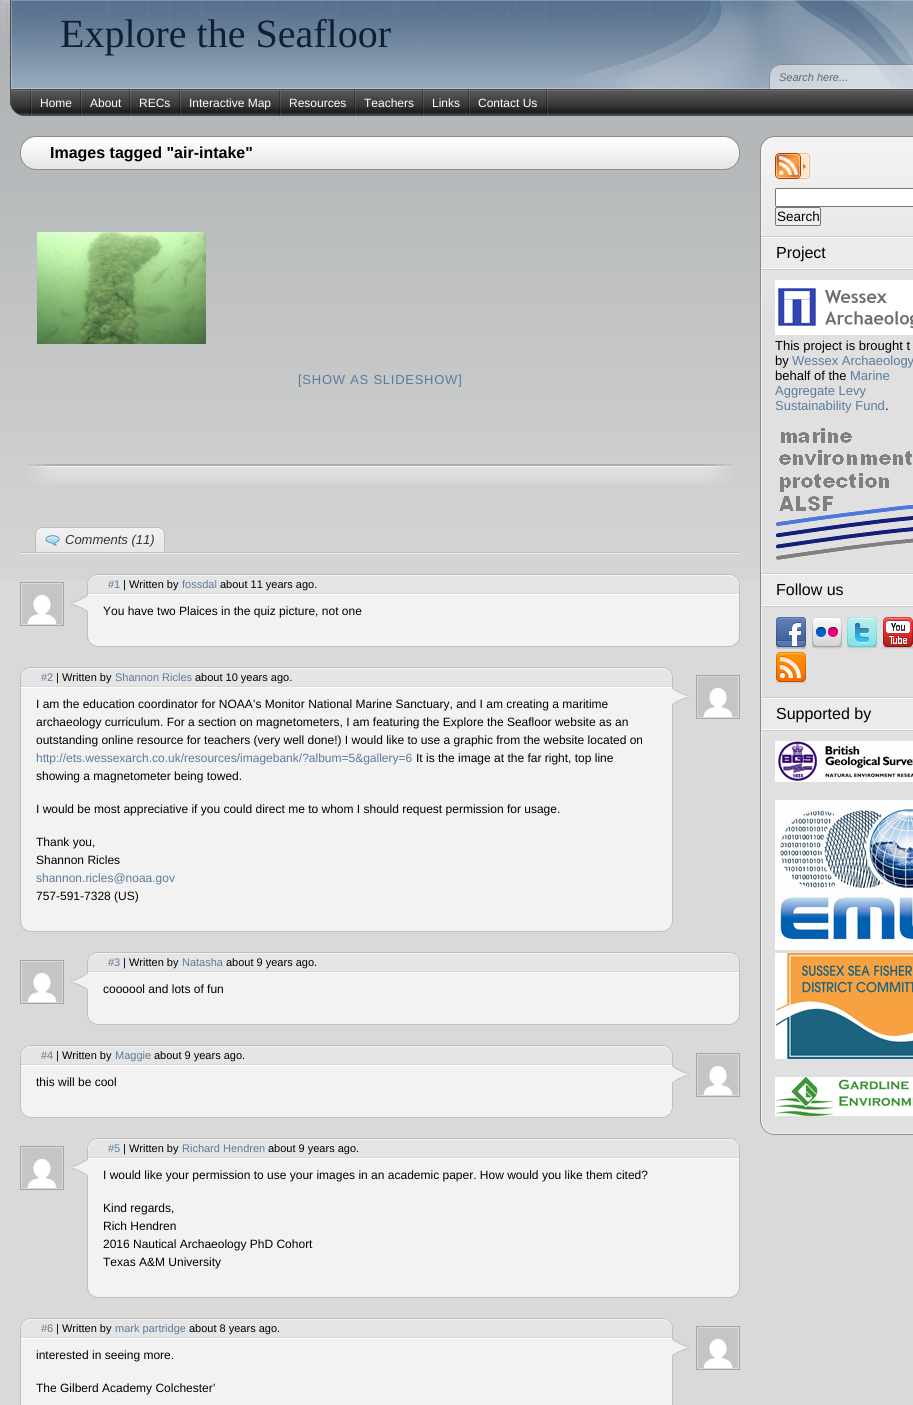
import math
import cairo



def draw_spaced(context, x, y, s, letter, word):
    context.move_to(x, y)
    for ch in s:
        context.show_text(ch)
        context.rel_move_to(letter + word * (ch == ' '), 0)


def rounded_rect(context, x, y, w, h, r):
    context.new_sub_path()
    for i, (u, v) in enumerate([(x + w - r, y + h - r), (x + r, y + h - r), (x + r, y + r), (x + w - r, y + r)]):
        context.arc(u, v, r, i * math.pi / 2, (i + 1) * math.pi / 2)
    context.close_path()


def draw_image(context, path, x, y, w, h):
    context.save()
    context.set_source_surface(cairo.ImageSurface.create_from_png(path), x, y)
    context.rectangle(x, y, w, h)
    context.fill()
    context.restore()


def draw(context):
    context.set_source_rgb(217 / 255, 217 / 255, 217 / 255)
    context.paint()
    draw_image(context, "images/1.png", 0, 0, 913, 580)
    draw_image(context, "images/2.png", 0, 0, 10, 34)
    draw_image(context, "images/3.png", 10, 0, 903, 89)
    draw_image(context, "images/4.png", 769, 64, 144, 25)
    draw_image(context, "images/5.png", 10, 89, 903, 27)
    context.set_source_rgb(77 / 255, 77 / 255, 77 / 255)
    context.rectangle(11, 89, 902, 1)
    context.fill()
    draw_image(context, "images/6.png", 30, 90, 2, 26)
    draw_image(context, "images/6.png", 80, 90, 2, 26)
    draw_image(context, "images/7.png", 129, 90, 2, 26)
    draw_image(context, "images/6.png", 179, 90, 2, 26)
    draw_image(context, "images/7.png", 279, 90, 2, 26)
    draw_image(context, "images/7.png", 354, 90, 2, 26)
    draw_image(context, "images/7.png", 422, 90, 2, 26)
    draw_image(context, "images/6.png", 468, 90, 2, 26)
    draw_image(context, "images/6.png", 546, 90, 2, 26)
    draw_image(context, "images/8.png", 20, 136, 705, 14)
    draw_image(context, "images/9.png", 725, 136, 15, 14)
    draw_image(context, "images/10.png", 20, 150, 690, 20)
    draw_image(context, "images/11.png", 710, 150, 30, 20)
    draw_image(context, "images/12.png", 37, 232, 169, 112)
    draw_image(context, "images/13.png", 26, 464, 674, 22)
    draw_image(context, "images/14.png", 700, 464, 34, 22)
    draw_image(context, "images/15.png", 20, 552, 720, 2)
    draw_image(context, "images/16.png", 35, 527, 125, 25)
    draw_image(context, "images/17.png", 159, 527, 6, 25)
    draw_image(context, "images/18.png", 45, 535, 16, 12)
    context.rectangle(20.5, 582.5, 43, 43)
    context.set_source_rgb(166 / 255, 166 / 255, 166 / 255)
    context.set_line_width(1)
    context.stroke()
    draw_image(context, "images/19.png", 22, 584, 40, 40)
    draw_image(context, "images/20.png", 70, 574, 660, 40)
    draw_image(context, "images/21.png", 730, 574, 10, 40)
    context.set_source_rgb(242 / 255, 242 / 255, 242 / 255)
    context.rectangle(88, 614, 651, 22)
    context.fill()
    context.set_source_rgb(191 / 255, 191 / 255, 191 / 255)
    context.rectangle(739, 614, 1, 22)
    context.fill()
    context.rectangle(87, 614, 1, 22)
    context.fill()
    draw_image(context, "images/22.png", 87, 636, 643, 11)
    draw_image(context, "images/23.png", 730, 636, 10, 11)
    draw_image(context, "images/24.png", 30, 667, 660, 40)
    draw_image(context, "images/25.png", 20, 667, 10, 40)
    context.set_source_rgb(242 / 255, 242 / 255, 242 / 255)
    context.rectangle(21, 707, 651, 214)
    context.fill()
    context.set_source_rgb(191 / 255, 191 / 255, 191 / 255)
    context.rectangle(672, 707, 1, 214)
    context.fill()
    context.rectangle(20, 707, 1, 214)
    context.fill()
    draw_image(context, "images/26.png", 30, 921, 643, 11)
    draw_image(context, "images/27.png", 20, 921, 10, 11)
    context.rectangle(696.5, 675.5, 43, 43)
    context.set_source_rgb(166 / 255, 166 / 255, 166 / 255)
    context.stroke()
    draw_image(context, "images/19.png", 698, 677, 40, 40)
    context.rectangle(20.5, 960.5, 43, 43)
    context.stroke()
    draw_image(context, "images/19.png", 22, 962, 40, 40)
    draw_image(context, "images/28.png", 70, 952, 660, 40)
    draw_image(context, "images/29.png", 730, 952, 10, 40)
    context.set_source_rgb(242 / 255, 242 / 255, 242 / 255)
    context.rectangle(88, 992, 651, 22)
    context.fill()
    context.set_source_rgb(191 / 255, 191 / 255, 191 / 255)
    context.rectangle(739, 992, 1, 22)
    context.fill()
    context.rectangle(87, 992, 1, 22)
    context.fill()
    draw_image(context, "images/22.png", 87, 1014, 643, 11)
    draw_image(context, "images/23.png", 730, 1014, 10, 11)
    draw_image(context, "images/24.png", 30, 1045, 660, 40)
    draw_image(context, "images/25.png", 20, 1045, 10, 40)
    context.set_source_rgb(242 / 255, 242 / 255, 242 / 255)
    context.rectangle(21, 1085, 651, 22)
    context.fill()
    context.set_source_rgb(191 / 255, 191 / 255, 191 / 255)
    context.rectangle(672, 1085, 1, 22)
    context.fill()
    context.rectangle(20, 1085, 1, 22)
    context.fill()
    draw_image(context, "images/26.png", 30, 1107, 643, 11)
    draw_image(context, "images/27.png", 20, 1107, 10, 11)
    context.rectangle(696.5, 1053.5, 43, 43)
    context.set_source_rgb(166 / 255, 166 / 255, 166 / 255)
    context.stroke()
    draw_image(context, "images/19.png", 698, 1055, 40, 40)
    context.rectangle(20.5, 1146.5, 43, 43)
    context.stroke()
    draw_image(context, "images/19.png", 22, 1148, 40, 40)
    draw_image(context, "images/28.png", 70, 1138, 660, 40)
    draw_image(context, "images/29.png", 730, 1138, 10, 40)
    context.set_source_rgb(242 / 255, 242 / 255, 242 / 255)
    context.rectangle(88, 1178, 651, 109)
    context.fill()
    context.set_source_rgb(191 / 255, 191 / 255, 191 / 255)
    context.rectangle(739, 1178, 1, 109)
    context.fill()
    context.rectangle(87, 1178, 1, 109)
    context.fill()
    draw_image(context, "images/22.png", 87, 1287, 643, 11)
    draw_image(context, "images/23.png", 730, 1287, 10, 11)
    draw_image(context, "images/24.png", 30, 1318, 660, 40)
    draw_image(context, "images/25.png", 20, 1318, 10, 40)
    context.set_source_rgb(242 / 255, 242 / 255, 242 / 255)
    context.rectangle(21, 1358, 651, 47)
    context.fill()
    context.set_source_rgb(191 / 255, 191 / 255, 191 / 255)
    context.rectangle(672, 1358, 1, 47)
    context.fill()
    context.rectangle(20, 1358, 1, 47)
    context.fill()
    context.rectangle(696.5, 1326.5, 43, 43)
    context.set_source_rgb(166 / 255, 166 / 255, 166 / 255)
    context.stroke()
    draw_image(context, "images/19.png", 698, 1328, 40, 40)
    draw_image(context, "images/30.png", 760, 136, 153, 170)
    draw_image(context, "images/31.png", 760, 306, 153, 814)
    draw_image(context, "images/32.png", 775, 153, 26, 26)
    draw_image(context, "images/33.png", 801, 153, 9, 26)
    context.set_source_rgb(1, 1, 1)
    rounded_rect(context, 775.5, 188.5, 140, 18, 1.5)
    context.fill_preserve()
    context.set_source_rgb(118 / 255, 118 / 255, 118 / 255)
    context.stroke()
    context.set_source_rgb(239 / 255, 239 / 255, 239 / 255)
    rounded_rect(context, 775.5, 207.5, 45, 18, 1.5)
    context.fill_preserve()
    context.set_source_rgb(118 / 255, 118 / 255, 118 / 255)
    context.stroke()
    context.set_source_rgb(251 / 255, 251 / 255, 251 / 255)
    context.rectangle(761, 237, 152, 32)
    context.fill()
    context.set_source_rgb(204 / 255, 204 / 255, 204 / 255)
    context.rectangle(761, 236, 152, 1)
    context.fill()
    context.rectangle(761, 269, 152, 1)
    context.fill()
    context.set_source_rgb(235 / 255, 235 / 255, 235 / 255)
    context.rectangle(761, 238, 152, 30)
    context.fill()
    draw_image(context, "images/34.png", 775, 280, 138, 55)
    draw_image(context, "images/35.png", 775, 428, 138, 132)
    context.set_source_rgb(251 / 255, 251 / 255, 251 / 255)
    context.rectangle(761, 574, 152, 32)
    context.fill()
    context.set_source_rgb(204 / 255, 204 / 255, 204 / 255)
    context.rectangle(761, 573, 152, 1)
    context.fill()
    context.rectangle(761, 606, 152, 1)
    context.fill()
    context.set_source_rgb(235 / 255, 235 / 255, 235 / 255)
    context.rectangle(761, 575, 152, 30)
    context.fill()
    draw_image(context, "images/36.png", 775, 617, 32, 32)
    draw_image(context, "images/37.png", 811, 617, 32, 32)
    draw_image(context, "images/38.png", 847, 617, 30, 32)
    draw_image(context, "images/39.png", 882, 617, 31, 32)
    draw_image(context, "images/40.png", 776, 652, 30, 32)
    context.set_source_rgb(251 / 255, 251 / 255, 251 / 255)
    context.rectangle(761, 698, 152, 32)
    context.fill()
    context.set_source_rgb(204 / 255, 204 / 255, 204 / 255)
    context.rectangle(761, 697, 152, 1)
    context.fill()
    context.rectangle(761, 730, 152, 1)
    context.fill()
    context.set_source_rgb(235 / 255, 235 / 255, 235 / 255)
    context.rectangle(761, 699, 152, 30)
    context.fill()
    draw_image(context, "images/41.png", 775, 741, 138, 41)
    draw_image(context, "images/42.png", 775, 800, 138, 150)
    draw_image(context, "images/43.png", 775, 953, 138, 106)
    draw_image(context, "images/44.png", 775, 1077, 138, 39)
    draw_image(context, "images/45.png", 760, 1120, 153, 15)
    context.select_font_face("Liberation Serif")
    context.set_font_size(40)
    context.set_source_rgb(15 / 255, 32 / 255, 51 / 255)
    context.move_to(60, 47)
    context.show_text("Explore the Seafloor")
    context.select_font_face("Liberation Sans", cairo.FontSlant.ITALIC)
    context.set_font_size(11)
    context.set_source_rgb(102 / 255, 102 / 255, 102 / 255)
    context.move_to(779, 81)
    context.show_text("Search here...")
    context.select_font_face("Liberation Sans")
    context.set_font_size(12)
    context.set_source_rgb(1, 1, 1)
    context.move_to(40, 107)
    context.show_text("Home")
    context.move_to(90, 107)
    context.show_text("About")
    context.move_to(139, 107)
    context.show_text("RECs")
    context.move_to(189, 107)
    context.show_text("Interactive Map")
    context.move_to(289, 107)
    context.show_text("Resources")
    context.move_to(364, 107)
    context.show_text("Teachers")
    context.move_to(432, 107)
    context.show_text("Links")
    context.move_to(478, 107)
    context.show_text("Contact Us")
    context.select_font_face("Liberation Sans", cairo.FontSlant.NORMAL, cairo.FontWeight.BOLD)
    context.set_font_size(16)
    context.set_source_rgb(0, 0, 0)
    context.move_to(50, 158)
    context.show_text("Images tagged \"air-intake\"")
    context.select_font_face("Liberation Sans")
    context.set_font_size(13)
    context.set_source_rgb(92 / 255, 122 / 255, 153 / 255)
    draw_spaced(context, 298, 384, "[SHOW AS SLIDESHOW]", 0.75, 0)
    context.select_font_face("Liberation Sans", cairo.FontSlant.ITALIC)
    context.set_source_rgb(51 / 255, 51 / 255, 51 / 255)
    context.move_to(65, 544)
    context.show_text("Comments (11)")
    context.select_font_face("Liberation Sans")
    context.set_font_size(11)
    context.set_source_rgb(92 / 255, 122 / 255, 153 / 255)
    context.move_to(108, 588)
    context.show_text("#1")
    context.set_source_rgb(0, 0, 0)
    context.move_to(123, 588)
    context.show_text("| Written by")
    context.set_source_rgb(92 / 255, 122 / 255, 153 / 255)
    context.move_to(182, 588)
    context.show_text("fossdal")
    context.set_source_rgb(0, 0, 0)
    context.move_to(220, 588)
    context.show_text("about 11 years ago.")
    context.set_font_size(12)
    context.move_to(103, 615)
    context.show_text("You have two Plaices in the quiz picture, not one")
    context.set_font_size(11)
    context.set_source_rgb(92 / 255, 122 / 255, 153 / 255)
    context.move_to(41, 681)
    context.show_text("#2")
    context.set_source_rgb(0, 0, 0)
    context.move_to(56, 681)
    context.show_text("| Written by")
    context.set_source_rgb(92 / 255, 122 / 255, 153 / 255)
    context.move_to(115, 681)
    context.show_text("Shannon Ricles")
    context.set_source_rgb(0, 0, 0)
    context.move_to(195, 681)
    context.show_text("about 10 years ago.")
    context.set_font_size(12)
    context.move_to(36, 708)
    context.show_text("I am the education coordinator for NOAA’s Monitor National Marine Sanctuary, and I am creating a maritime")
    context.move_to(36, 726)
    context.show_text("archaeology curriculum. For a section on magnetometers, I am featuring the Explore the Seafloor website as an")
    context.move_to(36, 744)
    context.show_text("outstanding online resource for teachers (very well done!) I would like to use a graphic from the website located on")
    context.set_source_rgb(92 / 255, 122 / 255, 153 / 255)
    context.move_to(36, 762)
    context.show_text("http://ets.wessexarch.co.uk/resources/imagebank/?album=5&gallery=6")
    context.set_source_rgb(0, 0, 0)
    context.move_to(416, 762)
    context.show_text("It is the image at the far right, top line")
    context.move_to(36, 780)
    context.show_text("showing a magnetometer being towed.")
    context.move_to(36, 813)
    context.show_text("I would be most appreciative if you could direct me to whom I should request permission for usage.")
    context.move_to(36, 846)
    context.show_text("Thank you,")
    context.move_to(36, 864)
    context.show_text("Shannon Ricles")
    context.set_source_rgb(92 / 255, 122 / 255, 153 / 255)
    context.move_to(36, 882)
    context.show_text("shannon.ricles@noaa.gov")
    context.set_source_rgb(0, 0, 0)
    context.move_to(36, 900)
    context.show_text("757-591-7328 (US)")
    context.set_font_size(11)
    context.set_source_rgb(92 / 255, 122 / 255, 153 / 255)
    context.move_to(108, 966)
    context.show_text("#3")
    context.set_source_rgb(0, 0, 0)
    context.move_to(123, 966)
    context.show_text("| Written by")
    context.set_source_rgb(92 / 255, 122 / 255, 153 / 255)
    context.move_to(182, 966)
    context.show_text("Natasha")
    context.set_source_rgb(0, 0, 0)
    context.move_to(226, 966)
    context.show_text("about 9 years ago.")
    context.set_font_size(12)
    context.move_to(103, 993)
    context.show_text("coooool and lots of fun")
    context.set_font_size(11)
    context.set_source_rgb(92 / 255, 122 / 255, 153 / 255)
    context.move_to(41, 1059)
    context.show_text("#4")
    context.set_source_rgb(0, 0, 0)
    context.move_to(56, 1059)
    context.show_text("| Written by")
    context.set_source_rgb(92 / 255, 122 / 255, 153 / 255)
    context.move_to(115, 1059)
    context.show_text("Maggie")
    context.set_source_rgb(0, 0, 0)
    context.move_to(154, 1059)
    context.show_text("about 9 years ago.")
    context.set_font_size(12)
    context.move_to(36, 1086)
    context.show_text("this will be cool")
    context.set_font_size(11)
    context.set_source_rgb(92 / 255, 122 / 255, 153 / 255)
    context.move_to(108, 1152)
    context.show_text("#5")
    context.set_source_rgb(0, 0, 0)
    context.move_to(123, 1152)
    context.show_text("| Written by")
    context.set_source_rgb(92 / 255, 122 / 255, 153 / 255)
    context.move_to(182, 1152)
    context.show_text("Richard Hendren")
    context.set_source_rgb(0, 0, 0)
    context.move_to(268, 1152)
    context.show_text("about 9 years ago.")
    context.set_font_size(12)
    context.move_to(103, 1179)
    context.show_text("I would like your permission to use your images in an academic paper. How would you like them cited?")
    context.move_to(103, 1212)
    context.show_text("Kind regards,")
    context.move_to(103, 1230)
    context.show_text("Rich Hendren")
    context.move_to(103, 1248)
    context.show_text("2016 Nautical Archaeology PhD Cohort")
    context.move_to(103, 1266)
    context.show_text("Texas A&M University")
    context.set_font_size(11)
    context.set_source_rgb(92 / 255, 122 / 255, 153 / 255)
    context.move_to(41, 1332)
    context.show_text("#6")
    context.set_source_rgb(0, 0, 0)
    context.move_to(56, 1332)
    context.show_text("| Written by")
    context.set_source_rgb(92 / 255, 122 / 255, 153 / 255)
    context.move_to(115, 1332)
    context.show_text("mark partridge")
    context.set_source_rgb(0, 0, 0)
    context.move_to(189, 1332)
    context.show_text("about 8 years ago.")
    context.set_font_size(12)
    context.move_to(36, 1359)
    context.show_text("interested in seeing more.")
    context.move_to(36, 1392)
    context.show_text("The Gilberd Academy Colchester’")
    context.set_font_size(13.5)
    context.move_to(777, 221)
    context.show_text("Search")
    context.set_font_size(16)
    context.move_to(776, 258)
    context.show_text("Project")
    context.set_font_size(13)
    context.move_to(775, 350)
    context.show_text("This project is brought t")
    context.move_to(775, 365)
    context.show_text("by")
    context.set_source_rgb(92 / 255, 122 / 255, 153 / 255)
    context.move_to(792, 365)
    context.show_text("Wessex Archaeology")
    context.set_source_rgb(0, 0, 0)
    context.move_to(775, 380)
    context.show_text("behalf of the")
    context.set_source_rgb(92 / 255, 122 / 255, 153 / 255)
    context.move_to(850, 380)
    context.show_text("Marine")
    context.move_to(775, 395)
    context.show_text("Aggregate Levy")
    context.move_to(775, 410)
    context.show_text("Sustainability Fund")
    context.set_source_rgb(0, 0, 0)
    context.move_to(885, 410)
    context.show_text(".")
    context.set_font_size(16)
    context.move_to(776, 595)
    context.show_text("Follow us")
    context.move_to(776, 719)
    context.show_text("Supported by")


surface = cairo.ImageSurface(cairo.Format.RGB24, 913, 1405)
context = cairo.Context(surface)
options = cairo.FontOptions()
options.set_hint_metrics(cairo.HintMetrics.OFF)
options.set_hint_style(cairo.HintStyle.NONE)
context.set_font_options(options)
context.set_miter_limit(4)
draw(context)
surface.write_to_png("out.png")
